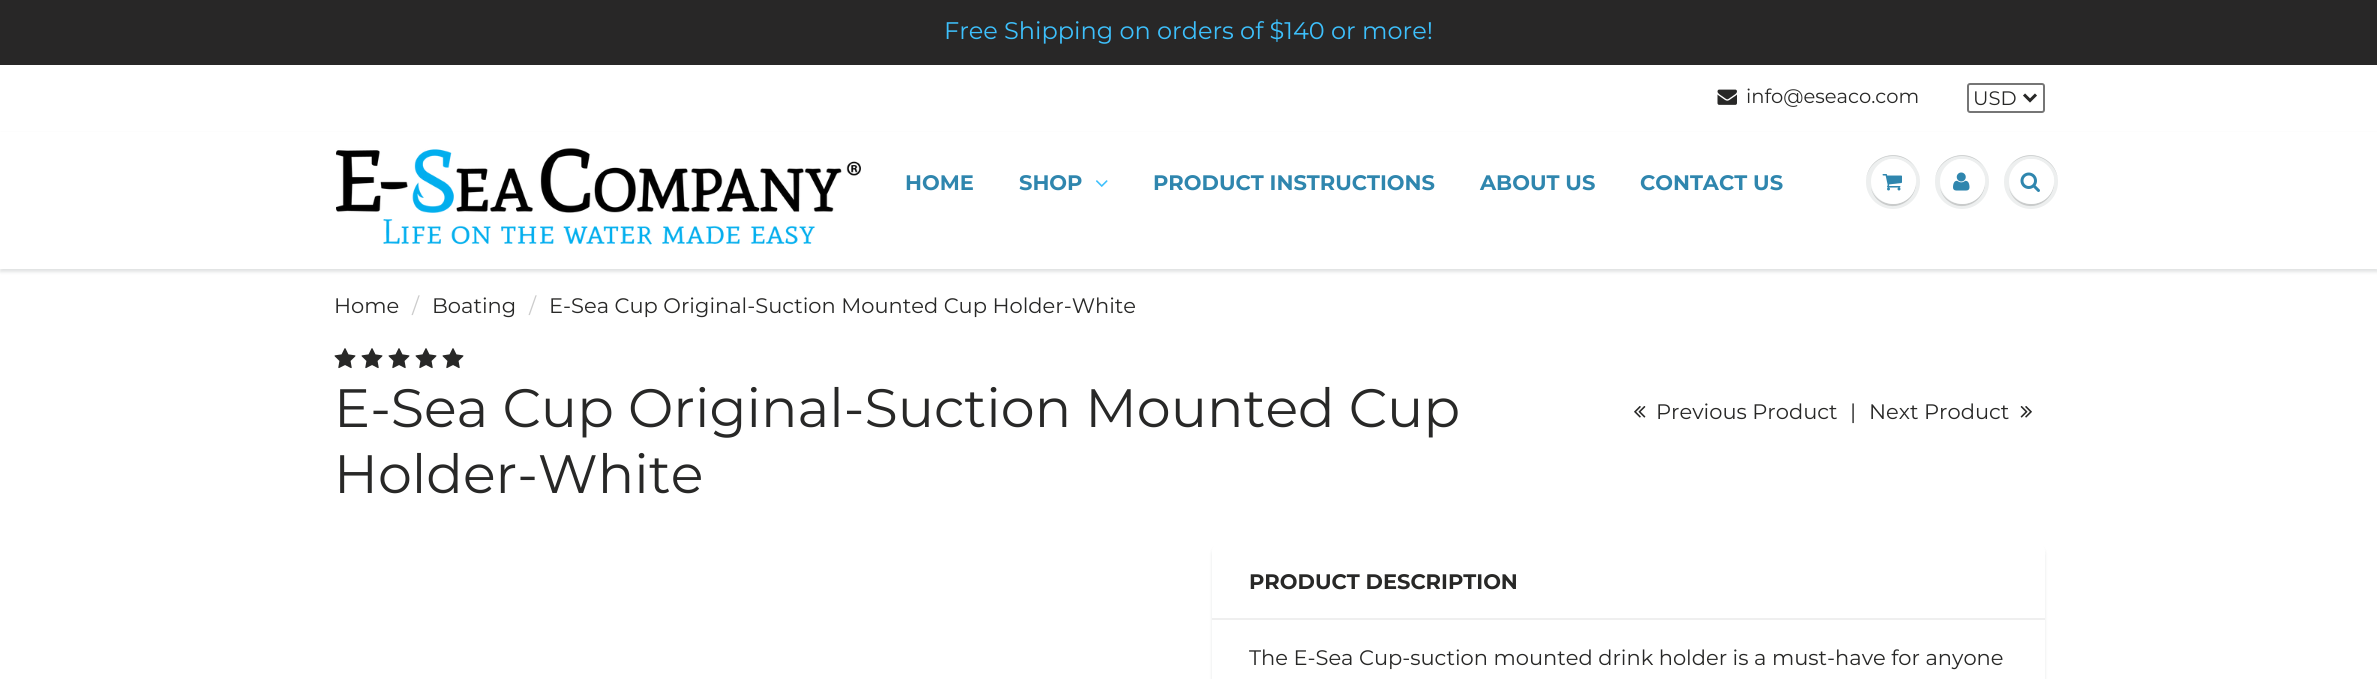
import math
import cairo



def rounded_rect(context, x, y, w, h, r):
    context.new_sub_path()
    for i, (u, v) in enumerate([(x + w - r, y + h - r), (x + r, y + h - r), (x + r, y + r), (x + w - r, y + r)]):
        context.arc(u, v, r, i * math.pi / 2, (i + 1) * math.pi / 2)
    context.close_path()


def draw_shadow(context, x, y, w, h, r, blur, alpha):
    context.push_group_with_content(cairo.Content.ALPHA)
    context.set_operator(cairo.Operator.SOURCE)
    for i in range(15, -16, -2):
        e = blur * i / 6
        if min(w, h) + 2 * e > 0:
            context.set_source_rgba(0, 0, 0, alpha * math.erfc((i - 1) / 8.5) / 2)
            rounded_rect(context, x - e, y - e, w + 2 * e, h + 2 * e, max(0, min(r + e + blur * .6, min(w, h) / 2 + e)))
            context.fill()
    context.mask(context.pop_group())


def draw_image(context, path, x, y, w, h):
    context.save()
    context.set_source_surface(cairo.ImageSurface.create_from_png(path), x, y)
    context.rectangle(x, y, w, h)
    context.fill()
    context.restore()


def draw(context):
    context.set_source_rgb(1, 1, 1)
    context.paint()
    context.set_source_rgb(40 / 255, 39 / 255, 39 / 255)
    context.rectangle(0, 0, 2377, 65)
    context.fill()
    draw_image(context, "images/1.png", 1717, 89, 20, 16)
    rounded_rect(context, 1968, 84, 76, 28, 2)
    context.set_source_rgb(118 / 255, 118 / 255, 118 / 255)
    context.stroke()
    context.new_path()
    context.move_to(2024, 94.5)
    context.line_to(2030, 100.5)
    context.line_to(2036, 94.5)
    context.set_source_rgb(40 / 255, 40 / 255, 39 / 255)
    context.set_line_width(3)
    context.stroke()
    context.set_source_rgb(11 / 255, 25 / 255, 28 / 255)
    draw_shadow(context, 0, 134, 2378, 138, 0, 1.5, 0.12)
    context.set_source_rgb(1, 1, 1)
    context.rectangle(0, 132, 2377, 137)
    context.fill()
    draw_image(context, "images/2.png", 336, 148, 525, 97)
    draw_image(context, "images/3.png", 1096, 180, 12, 7)
    context.set_source_rgb(237 / 255, 239 / 255, 239 / 255)
    context.arc(1893, 182, 27, 0, 2 * math.pi)
    context.fill()
    context.set_source_rgb(201 / 255, 203 / 255, 203 / 255)
    context.new_path()
    context.move_to(1893, 156)
    context.curve_to(1908, 156, 1920, 168, 1920, 182)
    context.curve_to(1920, 177, 1918, 171, 1915, 167)
    context.curve_to(1900, 145, 1866, 156, 1866, 182)
    context.curve_to(1866, 168, 1878, 156, 1893, 156)
    context.close_path()
    context.fill()
    context.new_path()
    context.move_to(1871, 188)
    context.curve_to(1872, 193, 1875, 198, 1879, 201)
    context.curve_to(1896, 215, 1921, 198, 1915, 177)
    context.curve_to(1921, 205, 1880, 215, 1871, 188)
    context.close_path()
    context.fill()
    context.set_source_rgb(1, 1, 1)
    context.arc(1893.5, 181.5, 22.5, 0, 2 * math.pi)
    context.fill()
    context.new_path()
    context.move_to(1893, 160)
    context.curve_to(1910.5, 160, 1917.5, 175.5, 1915, 188)
    context.curve_to(1922, 166, 1894.5, 149.5, 1878, 165)
    context.curve_to(1881.5, 162, 1886.5, 160, 1893, 160)
    context.close_path()
    context.fill()
    draw_image(context, "images/4.png", 1882, 174, 20, 17)
    context.set_source_rgb(237 / 255, 239 / 255, 239 / 255)
    context.arc(1962, 182, 27, 0, 2 * math.pi)
    context.fill()
    context.set_source_rgb(201 / 255, 203 / 255, 203 / 255)
    context.new_path()
    context.move_to(1962, 156)
    context.curve_to(1977, 156, 1989, 168, 1989, 182)
    context.curve_to(1989, 177, 1987, 171, 1984, 167)
    context.curve_to(1969, 145, 1935, 156, 1935, 182)
    context.curve_to(1935, 168, 1947, 156, 1962, 156)
    context.close_path()
    context.fill()
    context.new_path()
    context.move_to(1940, 188)
    context.curve_to(1941, 193, 1944, 198, 1948, 201)
    context.curve_to(1965, 215, 1990, 198, 1984, 177)
    context.curve_to(1990, 205, 1949, 215, 1940, 188)
    context.close_path()
    context.fill()
    context.set_source_rgb(1, 1, 1)
    context.arc(1962.5, 181.5, 22.5, 0, 2 * math.pi)
    context.fill()
    context.new_path()
    context.move_to(1962, 160)
    context.curve_to(1979.5, 160, 1986.5, 175.5, 1984, 188)
    context.curve_to(1991, 166, 1963.5, 149.5, 1947, 165)
    context.curve_to(1950.5, 162, 1955.5, 160, 1962, 160)
    context.close_path()
    context.fill()
    draw_image(context, "images/5.png", 1953, 172, 17, 19)
    context.set_source_rgb(237 / 255, 239 / 255, 239 / 255)
    context.arc(2031, 182, 27, 0, 2 * math.pi)
    context.fill()
    context.set_source_rgb(201 / 255, 203 / 255, 203 / 255)
    context.new_path()
    context.move_to(2031, 156)
    context.curve_to(2046, 156, 2058, 168, 2058, 182)
    context.curve_to(2058, 156, 2024, 145, 2009, 167)
    context.curve_to(2006, 171, 2004, 177, 2004, 182)
    context.curve_to(2004, 168, 2016, 156, 2031, 156)
    context.close_path()
    context.fill()
    context.new_path()
    context.move_to(2009, 188)
    context.curve_to(2010, 193, 2013, 198, 2017, 201)
    context.curve_to(2034, 215, 2059, 198, 2053, 177)
    context.curve_to(2059, 205, 2018, 215, 2009, 188)
    context.close_path()
    context.fill()
    context.set_source_rgb(1, 1, 1)
    context.arc(2031.5, 181.5, 22.5, 0, 2 * math.pi)
    context.fill()
    context.new_path()
    context.move_to(2031, 160)
    context.curve_to(2048.5, 160, 2055.5, 175.5, 2053, 188)
    context.curve_to(2060, 166, 2032.5, 149.5, 2016, 165)
    context.curve_to(2019.5, 162, 2024.5, 160, 2031, 160)
    context.close_path()
    context.fill()
    draw_image(context, "images/6.png", 2020, 172, 20, 20)
    draw_image(context, "images/7.png", 334, 348, 22, 21)
    draw_image(context, "images/7.png", 361, 348, 22, 21)
    draw_image(context, "images/7.png", 388, 348, 22, 21)
    draw_image(context, "images/7.png", 415, 348, 22, 21)
    draw_image(context, "images/7.png", 442, 348, 22, 21)
    draw_image(context, "images/8.png", 1634, 406, 12, 12)
    draw_image(context, "images/9.png", 2020, 406, 12, 12)
    context.set_source_rgb(11 / 255, 25 / 255, 28 / 255)
    draw_shadow(context, 1212, 546, 833, 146, 8, 1.5, 0.1)
    context.set_source_rgb(1, 1, 1)
    rounded_rect(context, 1212, 543, 833, 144, 8)
    context.fill()
    context.set_source_rgb(239 / 255, 239 / 255, 239 / 255)
    context.rectangle(1212, 618, 833, 2)
    context.fill()
    context.select_font_face("Montserrat")
    context.set_font_size(24)
    context.set_source_rgb(61 / 255, 192 / 255, 252 / 255)
    context.move_to(944, 39)
    context.show_text("Free Shipping on orders of $140 or more!")
    context.set_font_size(19.5)
    context.set_source_rgb(40 / 255, 40 / 255, 39 / 255)
    context.move_to(1746, 103)
    context.show_text("info@eseaco.com")
    context.move_to(1973, 105)
    context.show_text("USD")
    context.select_font_face("Montserrat", cairo.FontSlant.NORMAL, cairo.FontWeight.BOLD)
    context.set_font_size(21)
    context.set_source_rgb(47 / 255, 134 / 255, 174 / 255)
    context.move_to(905, 190)
    context.show_text("HOME")
    context.move_to(1019, 190)
    context.show_text("SHOP")
    context.move_to(1153, 190)
    context.show_text("PRODUCT INSTRUCTIONS")
    context.move_to(1480, 190)
    context.show_text("ABOUT US")
    context.move_to(1640, 190)
    context.show_text("CONTACT US")
    context.select_font_face("Montserrat")
    context.set_source_rgb(40 / 255, 40 / 255, 39 / 255)
    context.move_to(334, 313)
    context.show_text("Home")
    context.set_source_rgb(204 / 255, 204 / 255, 204 / 255)
    context.move_to(412, 313)
    context.show_text("/")
    context.set_source_rgb(40 / 255, 40 / 255, 39 / 255)
    context.move_to(432, 313)
    context.show_text("Boating")
    context.set_source_rgb(204 / 255, 204 / 255, 204 / 255)
    context.move_to(529, 313)
    context.show_text("/")
    context.set_source_rgb(40 / 255, 40 / 255, 39 / 255)
    context.move_to(549, 313)
    context.show_text("E-Sea Cup Original-Suction Mounted Cup Holder-White")
    context.set_font_size(54)
    context.move_to(334, 427)
    context.show_text("E-Sea Cup Original-Suction Mounted Cup")
    context.move_to(334, 493)
    context.show_text("Holder-White")
    context.set_font_size(21)
    context.move_to(1656, 419)
    context.show_text("Previous Product")
    context.move_to(1850, 419)
    context.show_text("|")
    context.move_to(1869, 419)
    context.show_text("Next Product")
    context.select_font_face("Montserrat", cairo.FontSlant.NORMAL, cairo.FontWeight.BOLD)
    context.move_to(1249, 589)
    context.show_text("PRODUCT DESCRIPTION")
    context.select_font_face("Montserrat")
    context.move_to(1249, 665)
    context.show_text("The E-Sea Cup-suction mounted drink holder is a must-have for anyone")


surface = cairo.ImageSurface(cairo.Format.RGB24, 2377, 679)
context = cairo.Context(surface)
options = cairo.FontOptions()
options.set_hint_metrics(cairo.HintMetrics.OFF)
options.set_hint_style(cairo.HintStyle.NONE)
context.set_font_options(options)
context.set_miter_limit(4)
draw(context)
surface.write_to_png("out.png")
